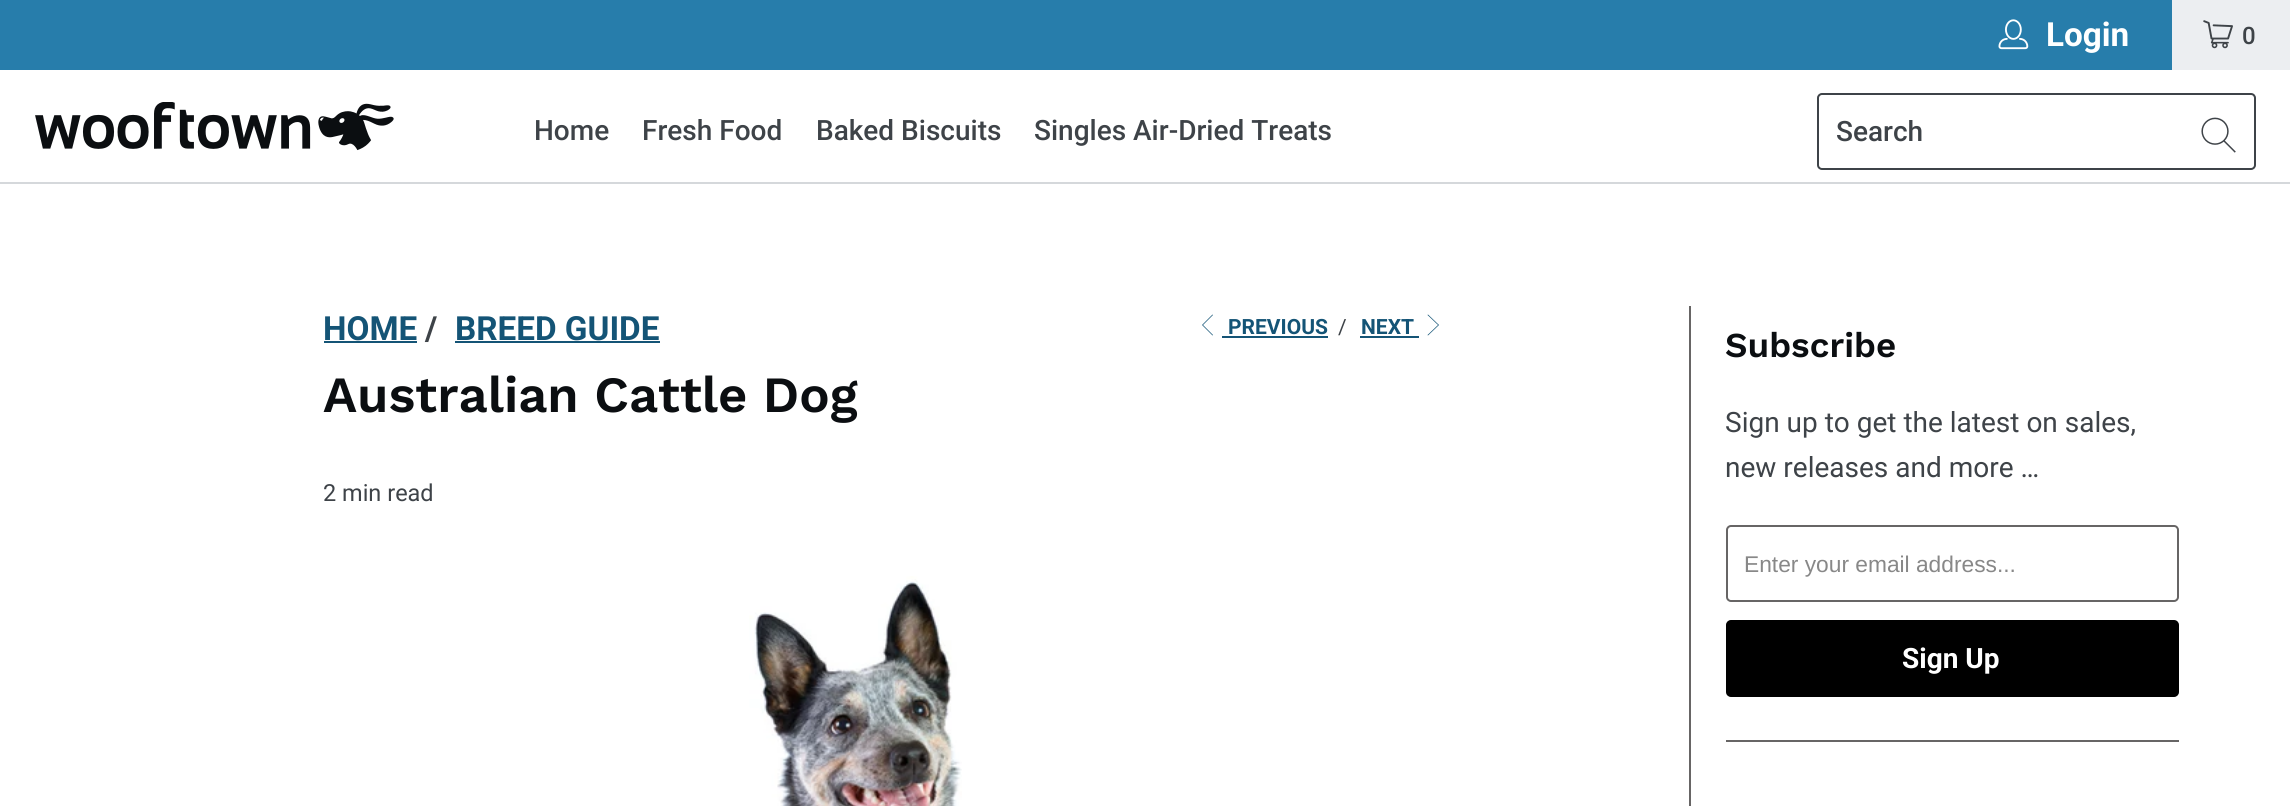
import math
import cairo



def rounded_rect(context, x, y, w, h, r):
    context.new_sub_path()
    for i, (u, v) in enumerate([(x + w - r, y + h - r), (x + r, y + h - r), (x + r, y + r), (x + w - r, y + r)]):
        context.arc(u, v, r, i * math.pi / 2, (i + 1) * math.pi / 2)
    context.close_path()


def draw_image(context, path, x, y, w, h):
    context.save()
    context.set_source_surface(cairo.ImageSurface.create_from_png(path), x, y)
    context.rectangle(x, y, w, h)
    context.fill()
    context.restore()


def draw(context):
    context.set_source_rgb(1, 1, 1)
    context.paint()
    context.set_source_rgb(39 / 255, 125 / 255, 171 / 255)
    context.rectangle(0, 0, 2172, 70)
    context.fill()
    draw_image(context, "images/1.png", 1998, 19, 31, 31)
    context.set_source_rgb(236 / 255, 238 / 255, 241 / 255)
    context.rectangle(2172, 0, 118, 70)
    context.fill()
    draw_image(context, "images/2.png", 2203, 20, 30, 29)
    context.set_source_rgb(213 / 255, 216 / 255, 219 / 255)
    context.rectangle(0, 182, 2290, 2)
    context.fill()
    draw_image(context, "images/3.png", 35, 102, 359, 49)
    rounded_rect(context, 1818, 94, 437, 75, 4)
    context.set_source_rgb(62 / 255, 67 / 255, 72 / 255)
    context.stroke()
    draw_image(context, "images/4.png", 2201, 117, 35, 36)
    context.set_source_rgb(20 / 255, 84 / 255, 118 / 255)
    context.rectangle(324, 341, 93, 2)
    context.fill()
    context.rectangle(455, 341, 205, 2)
    context.fill()
    context.new_path()
    context.move_to(1212.5, 335.5)
    context.line_to(1202, 325)
    context.line_to(1212.5, 314.5)
    context.line_to(1213, 315)
    context.line_to(1203, 325)
    context.line_to(1213, 335)
    context.close_path()
    context.fill()
    context.rectangle(1222, 336, 106, 2)
    context.fill()
    context.rectangle(1360, 336, 59, 2)
    context.fill()
    context.new_path()
    context.move_to(1428, 335.5)
    context.line_to(1427.5, 335)
    context.line_to(1438, 325)
    context.line_to(1427.5, 315)
    context.line_to(1428, 314.5)
    context.line_to(1439, 325)
    context.close_path()
    context.fill()
    draw_image(context, "images/5.png", 749, 576, 213, 230)
    context.set_source_rgb(103 / 255, 101 / 255, 101 / 255)
    context.rectangle(1689, 306, 2, 500)
    context.fill()
    context.rectangle(1726, 740, 453, 2)
    context.fill()
    rounded_rect(context, 1727, 526, 451, 75, 4)
    context.stroke()
    context.set_source_rgb(0, 0, 0)
    rounded_rect(context, 1727, 621, 451, 75, 4)
    context.fill_preserve()
    context.stroke()
    context.select_font_face("Roboto", cairo.FontSlant.NORMAL, cairo.FontWeight.BOLD)
    context.set_font_size(33.25)
    context.set_source_rgb(1, 1, 1)
    context.move_to(2046, 46)
    context.show_text("Login")
    context.select_font_face("Roboto Medium")
    context.set_font_size(24)
    context.set_source_rgb(62 / 255, 67 / 255, 72 / 255)
    context.move_to(2242, 44)
    context.show_text("0")
    context.set_font_size(28)
    context.move_to(534, 140)
    context.show_text("Home")
    context.move_to(642, 140)
    context.show_text("Fresh Food")
    context.move_to(816, 140)
    context.show_text("Baked Biscuits")
    context.move_to(1034, 140)
    context.show_text("Singles Air-Dried Treats")
    context.move_to(1836, 141)
    context.show_text("Search")
    context.select_font_face("Roboto", cairo.FontSlant.NORMAL, cairo.FontWeight.BOLD)
    context.set_font_size(33.25)
    context.set_source_rgb(20 / 255, 84 / 255, 118 / 255)
    context.move_to(323, 340)
    context.show_text("HOME")
    context.set_source_rgb(62 / 255, 67 / 255, 72 / 255)
    context.move_to(425, 340)
    context.show_text("/")
    context.set_source_rgb(20 / 255, 84 / 255, 118 / 255)
    context.move_to(455, 340)
    context.show_text("BREED GUIDE")
    context.set_font_size(21)
    context.move_to(1228, 334)
    context.show_text("PREVIOUS")
    context.select_font_face("Roboto")
    context.set_source_rgb(62 / 255, 67 / 255, 72 / 255)
    context.move_to(1338, 334)
    context.show_text("/")
    context.select_font_face("Roboto", cairo.FontSlant.NORMAL, cairo.FontWeight.BOLD)
    context.set_source_rgb(20 / 255, 84 / 255, 118 / 255)
    context.move_to(1361, 334)
    context.show_text("NEXT")
    context.select_font_face("Work Sans SemiBold")
    context.set_font_size(50.75)
    context.set_source_rgb(11 / 255, 14 / 255, 17 / 255)
    context.move_to(323, 412)
    context.show_text("Australian Cattle Dog")
    context.select_font_face("Roboto")
    context.set_font_size(23.5)
    context.set_source_rgb(62 / 255, 67 / 255, 72 / 255)
    context.move_to(323, 501)
    context.show_text("2 min read")
    context.select_font_face("Work Sans SemiBold")
    context.set_font_size(35)
    context.set_source_rgb(11 / 255, 14 / 255, 17 / 255)
    context.move_to(1725, 357)
    context.show_text("Subscribe")
    context.select_font_face("Roboto")
    context.set_font_size(28)
    context.set_source_rgb(62 / 255, 67 / 255, 72 / 255)
    context.move_to(1725, 432)
    context.show_text("Sign up to get the latest on sales,")
    context.move_to(1725, 477)
    context.show_text("new releases and more …")
    context.select_font_face("Liberation Sans")
    context.set_font_size(22.75)
    context.set_source_rgb(136 / 255, 136 / 255, 136 / 255)
    context.move_to(1744, 572)
    context.show_text("Enter your email address...")
    context.select_font_face("Roboto", cairo.FontSlant.NORMAL, cairo.FontWeight.BOLD)
    context.set_font_size(28)
    context.set_source_rgb(1, 1, 1)
    context.move_to(1902, 668)
    context.show_text("Sign Up")


surface = cairo.ImageSurface(cairo.Format.RGB24, 2290, 806)
context = cairo.Context(surface)
options = cairo.FontOptions()
options.set_hint_metrics(cairo.HintMetrics.OFF)
options.set_hint_style(cairo.HintStyle.NONE)
context.set_font_options(options)
context.set_miter_limit(4)
draw(context)
surface.write_to_png("out.png")
